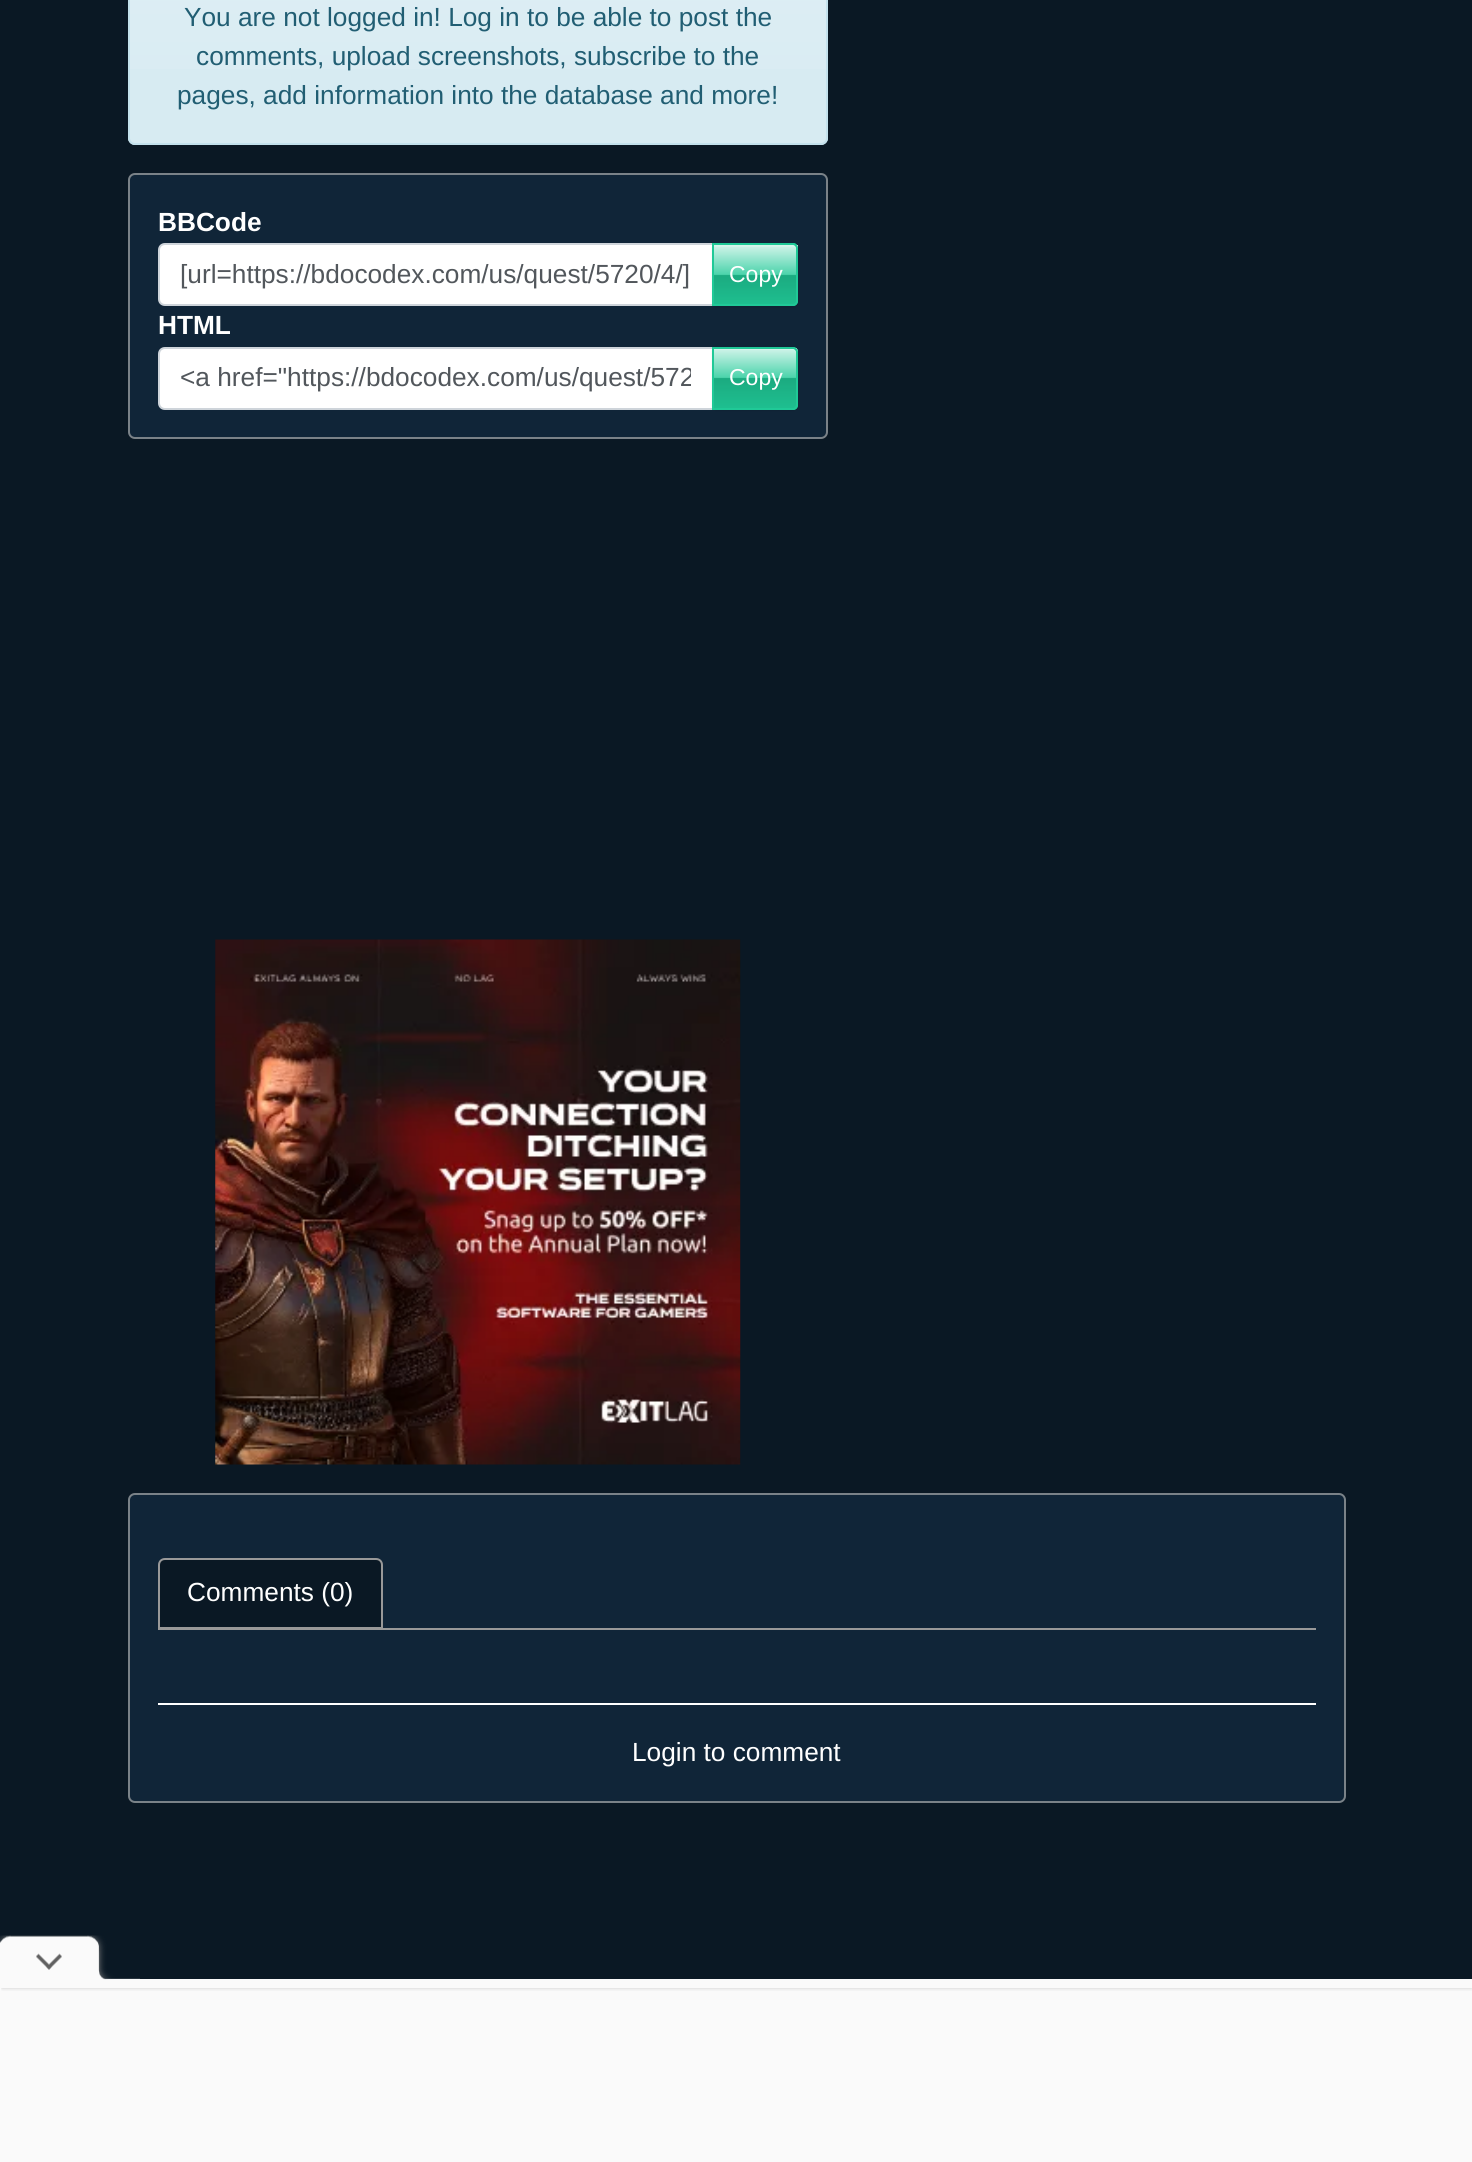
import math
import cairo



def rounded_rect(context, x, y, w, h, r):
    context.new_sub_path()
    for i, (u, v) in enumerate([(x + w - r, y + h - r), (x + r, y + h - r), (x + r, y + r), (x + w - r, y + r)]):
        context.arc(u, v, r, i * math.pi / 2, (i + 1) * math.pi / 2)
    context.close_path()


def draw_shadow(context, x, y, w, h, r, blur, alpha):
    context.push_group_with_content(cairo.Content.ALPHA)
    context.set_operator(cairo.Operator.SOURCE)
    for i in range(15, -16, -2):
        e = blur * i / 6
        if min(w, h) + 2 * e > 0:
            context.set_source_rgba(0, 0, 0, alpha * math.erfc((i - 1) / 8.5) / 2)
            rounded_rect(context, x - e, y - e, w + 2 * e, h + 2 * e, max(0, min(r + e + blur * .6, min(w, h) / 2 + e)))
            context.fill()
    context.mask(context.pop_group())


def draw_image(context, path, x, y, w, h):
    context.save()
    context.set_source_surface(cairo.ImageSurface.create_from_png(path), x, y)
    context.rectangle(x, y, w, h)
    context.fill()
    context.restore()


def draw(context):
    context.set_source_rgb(10 / 255, 24 / 255, 36 / 255)
    context.paint()
    context.set_source_rgb(215 / 255, 235 / 255, 242 / 255)
    rounded_rect(context, 128, -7, 700, 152, 7)
    context.fill()
    gradient = cairo.LinearGradient(478, -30, 478, 144)
    gradient.add_color_stop_rgba(0, 1, 1, 1, 0.15)
    gradient.add_color_stop_rgba(1, 1, 1, 1, 0)
    context.set_source(gradient)
    context.rectangle(130, 0, 696, 69)
    context.fill()
    rounded_rect(context, 129, -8, 698, 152, 6)
    context.set_source_rgb(195 / 255, 225 / 255, 236 / 255)
    context.stroke()
    context.set_source_rgb(16 / 255, 37 / 255, 56 / 255)
    rounded_rect(context, 129, 174, 698, 264, 6)
    context.fill_preserve()
    context.set_source_rgb(122 / 255, 130 / 255, 136 / 255)
    context.stroke()
    context.set_source_rgb(1, 1, 1)
    context.new_path()
    context.move_to(165, 244)
    context.line_to(713, 244)
    context.line_to(713, 305)
    context.line_to(165, 305)
    context.curve_to(161.5, 305, 159, 302.5, 159, 299)
    context.line_to(159, 250)
    context.curve_to(159, 246.5, 161.5, 244, 165, 244)
    context.close_path()
    context.fill_preserve()
    context.set_source_rgb(206 / 255, 212 / 255, 218 / 255)
    context.stroke()
    context.set_source_rgb(0, 0, 0)
    draw_shadow(context, 712, 245, 86, 63, 5, 1, 0.07)
    context.set_source_rgb(32 / 255, 201 / 255, 151 / 255)
    context.new_path()
    context.move_to(712, 243)
    context.line_to(793, 243)
    context.curve_to(796, 243, 798, 245, 798, 248)
    context.line_to(798, 301)
    context.curve_to(798, 304, 796, 306, 793, 306)
    context.line_to(712, 306)
    context.close_path()
    context.fill()
    gradient = cairo.LinearGradient(755, 245, 755, 305)
    gradient.add_color_stop_rgba(0, 1, 1, 1, 0.8)
    gradient.add_color_stop_rgba(0.49, 1, 1, 1, 0.2)
    gradient.add_color_stop_rgba(0.51, 0, 0, 0, 0.15)
    gradient.add_color_stop_rgba(1, 0, 0, 0, 0.05)
    context.set_source(gradient)
    context.rectangle(714, 245, 84, 60)
    context.fill()
    context.set_source_rgba(1, 1, 1, 0.15)
    context.new_path()
    context.move_to(714, 247)
    context.line_to(792, 247)
    context.curve_to(795, 247, 796, 248, 796, 251)
    context.line_to(796, 249)
    context.curve_to(796, 247, 794, 245, 792, 245)
    context.line_to(714, 245)
    context.close_path()
    context.fill()
    context.new_path()
    context.move_to(713, 244)
    context.line_to(793, 244)
    context.curve_to(795, 244, 797, 246, 797, 248)
    context.line_to(797, 301)
    context.curve_to(797, 303, 795, 305, 793, 305)
    context.line_to(713, 305)
    context.close_path()
    context.set_source_rgb(32 / 255, 201 / 255, 151 / 255)
    context.stroke()
    context.set_source_rgb(1, 1, 1)
    context.new_path()
    context.move_to(165, 348)
    context.line_to(713, 348)
    context.line_to(713, 409)
    context.line_to(165, 409)
    context.curve_to(161.5, 409, 159, 406.5, 159, 403)
    context.line_to(159, 354)
    context.curve_to(159, 350.5, 161.5, 348, 165, 348)
    context.close_path()
    context.fill_preserve()
    context.set_source_rgb(206 / 255, 212 / 255, 218 / 255)
    context.stroke()
    context.set_source_rgb(0, 0, 0)
    draw_shadow(context, 712, 348, 86, 63, 5, 1, 0.07)
    context.set_source_rgb(32 / 255, 201 / 255, 151 / 255)
    context.new_path()
    context.move_to(712, 347)
    context.line_to(793, 347)
    context.curve_to(796, 347, 798, 349, 798, 352)
    context.line_to(798, 405)
    context.curve_to(798, 408, 796, 410, 793, 410)
    context.line_to(712, 410)
    context.close_path()
    context.fill()
    context.save()
    context.new_path()
    context.move_to(712, 347)
    context.line_to(793, 347)
    context.curve_to(796, 347, 798, 349, 798, 352)
    context.line_to(798, 405)
    context.curve_to(798, 408, 796, 410, 793, 410)
    context.line_to(712, 410)
    context.close_path()
    context.clip()
    gradient = cairo.LinearGradient(755, 348, 755, 408)
    gradient.add_color_stop_rgba(0, 1, 1, 1, 0.8)
    gradient.add_color_stop_rgba(0.49, 1, 1, 1, 0.2)
    gradient.add_color_stop_rgba(0.51, 0, 0, 0, 0.15)
    gradient.add_color_stop_rgba(1, 0, 0, 0, 0.05)
    context.set_source(gradient)
    context.rectangle(714, 348, 84, 60)
    context.fill()
    context.restore()
    context.set_source_rgba(1, 1, 1, 0.15)
    context.new_path()
    context.move_to(714, 350)
    context.line_to(792, 350)
    context.curve_to(795, 350, 796, 352, 796, 354)
    context.line_to(796, 352)
    context.curve_to(796, 350, 794, 348, 792, 348)
    context.line_to(714, 348)
    context.close_path()
    context.fill()
    context.new_path()
    context.move_to(713, 348)
    context.line_to(793, 348)
    context.curve_to(795, 348, 797, 350, 797, 352)
    context.line_to(797, 405)
    context.curve_to(797, 407, 795, 409, 793, 409)
    context.line_to(713, 409)
    context.close_path()
    context.set_source_rgb(32 / 255, 201 / 255, 151 / 255)
    context.stroke()
    draw_image(context, "images/1.png", 215, 939, 526, 526)
    context.set_source_rgb(16 / 255, 37 / 255, 56 / 255)
    rounded_rect(context, 129, 1494, 1216, 308, 6)
    context.fill_preserve()
    context.set_source_rgb(122 / 255, 130 / 255, 136 / 255)
    context.stroke()
    context.set_source_rgb(153 / 255, 153 / 255, 153 / 255)
    context.rectangle(158, 1628, 1158, 2)
    context.fill()
    context.set_source_rgb(10 / 255, 24 / 255, 36 / 255)
    context.new_path()
    context.move_to(165, 1559)
    context.line_to(376, 1559)
    context.curve_to(379.5, 1559, 382, 1561.5, 382, 1565)
    context.line_to(382, 1628)
    context.line_to(159, 1628)
    context.line_to(159, 1565)
    context.curve_to(159, 1561.5, 161.5, 1559, 165, 1559)
    context.close_path()
    context.fill_preserve()
    context.set_source_rgb(153 / 255, 153 / 255, 153 / 255)
    context.stroke()
    context.set_source_rgb(1, 1, 1)
    context.rectangle(158, 1703, 1158, 2)
    context.fill()
    context.set_source_rgb(250 / 255, 250 / 255, 250 / 255)
    context.rectangle(0, 1979, 1472, 183)
    context.fill()
    context.save()
    context.rectangle(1, 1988, 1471, 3)
    context.clip()
    context.set_source_rgb(0, 0, 0)
    draw_shadow(context, 2, 1983, 1470, 5, 0, 2, 0.2)
    context.restore()
    context.set_source_rgb(216 / 255, 216 / 255, 216 / 255)
    draw_shadow(context, 5, 1946, 93, 32, 7, 1, 1)
    draw_image(context, "images/2.png", 0, 1935, 140, 45)
    context.select_font_face("Liberation Sans")
    context.set_font_size(26.25)
    context.set_source_rgb(33 / 255, 94 / 255, 115 / 255)
    context.move_to(184, 26)
    context.show_text("You are not logged in! Log in to be able to post the")
    context.move_to(196, 65)
    context.show_text("comments, upload screenshots, subscribe to the")
    context.move_to(177, 104)
    context.show_text("pages, add information into the database and more!")
    context.select_font_face("Liberation Sans", cairo.FontSlant.NORMAL, cairo.FontWeight.BOLD)
    context.set_source_rgb(1, 1, 1)
    context.move_to(158, 231)
    context.show_text("BBCode")
    context.select_font_face("Liberation Sans")
    context.set_source_rgb(82 / 255, 87 / 255, 92 / 255)
    context.move_to(180, 283)
    context.show_text("[url=https://bdocodex.com/us/quest/5720/4/]")
    context.set_font_size(23)
    context.set_source_rgb(1, 1, 1)
    context.move_to(729, 282)
    context.show_text("Copy")
    context.select_font_face("Liberation Sans", cairo.FontSlant.NORMAL, cairo.FontWeight.BOLD)
    context.set_font_size(26.25)
    context.move_to(158, 334)
    context.show_text("HTML")
    context.save()
    context.rectangle(180, 359, 511, 38)
    context.clip()
    context.select_font_face("Liberation Sans")
    context.set_source_rgb(82 / 255, 87 / 255, 92 / 255)
    context.move_to(180, 386)
    context.show_text("<a href=\"https://bdocodex.com/us/quest/572")
    context.restore()
    context.select_font_face("Liberation Sans")
    context.set_font_size(23)
    context.move_to(729, 385)
    context.show_text("Copy")
    context.set_font_size(26.25)
    context.move_to(187, 1601)
    context.show_text("Comments (0)")
    context.move_to(632, 1761)
    context.show_text("Login to comment")


surface = cairo.ImageSurface(cairo.Format.RGB24, 1472, 2162)
context = cairo.Context(surface)
options = cairo.FontOptions()
options.set_hint_metrics(cairo.HintMetrics.OFF)
options.set_hint_style(cairo.HintStyle.NONE)
context.set_font_options(options)
context.set_miter_limit(4)
draw(context)
surface.write_to_png("out.png")
